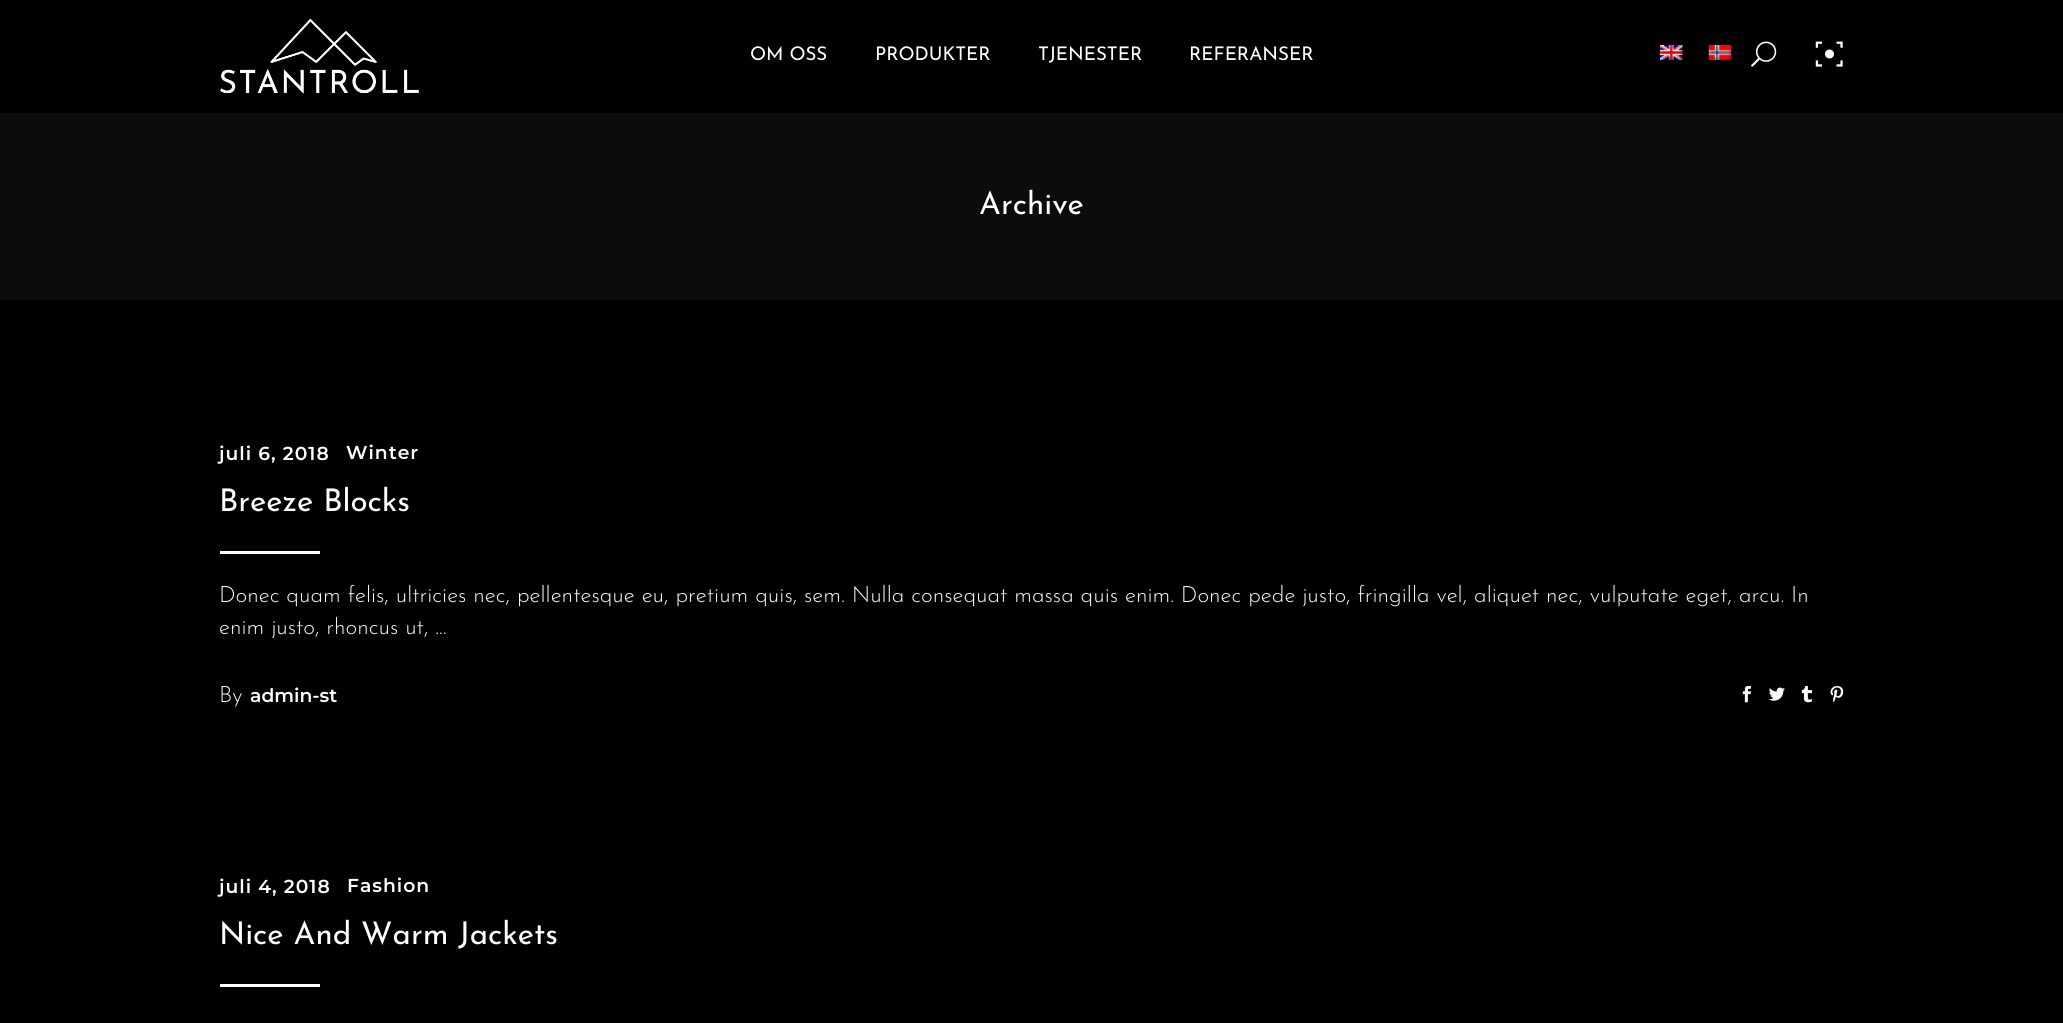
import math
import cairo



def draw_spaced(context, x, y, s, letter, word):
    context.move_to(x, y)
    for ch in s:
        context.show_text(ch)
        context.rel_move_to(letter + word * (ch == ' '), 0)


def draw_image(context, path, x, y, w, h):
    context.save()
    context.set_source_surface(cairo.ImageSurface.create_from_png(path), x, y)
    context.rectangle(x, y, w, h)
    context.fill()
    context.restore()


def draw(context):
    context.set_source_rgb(0, 0, 0)
    context.paint()
    draw_image(context, "images/1.png", 220, 18, 199, 76)
    draw_image(context, "images/2.png", 1660, 45, 23, 15)
    draw_image(context, "images/3.png", 1708, 45, 24, 15)
    draw_image(context, "images/4.png", 1751, 41, 26, 26)
    draw_image(context, "images/5.png", 1815, 41, 28, 26)
    context.set_source_rgb(12 / 255, 12 / 255, 12 / 255)
    context.rectangle(0, 113, 2063, 187)
    context.fill()
    context.set_source_rgb(1, 1, 1)
    context.rectangle(220, 551, 100, 3)
    context.fill()
    draw_image(context, "images/6.png", 1742, 686, 9, 17)
    draw_image(context, "images/7.png", 1769, 687, 16, 14)
    draw_image(context, "images/8.png", 1801, 686, 11, 17)
    draw_image(context, "images/9.png", 1830, 686, 14, 17)
    context.rectangle(220, 984, 100, 3)
    context.fill()
    context.select_font_face("Josefin Sans")
    context.set_font_size(18.75)
    context.move_to(750, 60)
    context.show_text("OM OSS")
    context.move_to(875, 60)
    context.show_text("PRODUKTER")
    context.move_to(1038, 60)
    context.show_text("TJENESTER")
    context.move_to(1189, 60)
    context.show_text("REFERANSER")
    context.set_font_size(31.25)
    context.move_to(979, 214)
    context.show_text("Archive")
    context.select_font_face("Montserrat SemiBold")
    context.set_font_size(18.75)
    draw_spaced(context, 219, 460, "juli 6, 2018", 1, 0)
    draw_spaced(context, 346, 459, "Winter", 1, 0)
    context.select_font_face("Josefin Sans")
    context.set_font_size(31.25)
    context.move_to(219, 511)
    context.show_text("Breeze Blocks")
    context.select_font_face("Josefin Sans Light")
    context.set_font_size(22.5)
    context.set_source_rgb(247 / 255, 247 / 255, 247 / 255)
    context.move_to(219, 602)
    context.show_text("Donec quam felis, ultricies nec, pellentesque eu, pretium quis, sem. Nulla consequat massa quis enim. Donec pede justo, fringilla vel, aliquet nec, vulputate eget, arcu. In")
    context.move_to(219, 634)
    context.show_text("enim justo, rhoncus ut, ...")
    context.move_to(219, 702)
    context.show_text("By")
    context.select_font_face("Montserrat SemiBold")
    context.set_font_size(18.75)
    context.set_source_rgb(1, 1, 1)
    context.move_to(250, 702)
    context.show_text("admin-st")
    draw_spaced(context, 219, 893, "juli 4, 2018", 1, 0)
    draw_spaced(context, 347, 892, "Fashion", 1, 0)
    context.select_font_face("Josefin Sans")
    context.set_font_size(31.25)
    context.move_to(219, 944)
    context.show_text("Nice And Warm Jackets")


surface = cairo.ImageSurface(cairo.Format.RGB24, 2063, 1023)
context = cairo.Context(surface)
options = cairo.FontOptions()
options.set_hint_metrics(cairo.HintMetrics.OFF)
options.set_hint_style(cairo.HintStyle.NONE)
context.set_font_options(options)
context.set_miter_limit(4)
draw(context)
surface.write_to_png("out.png")
